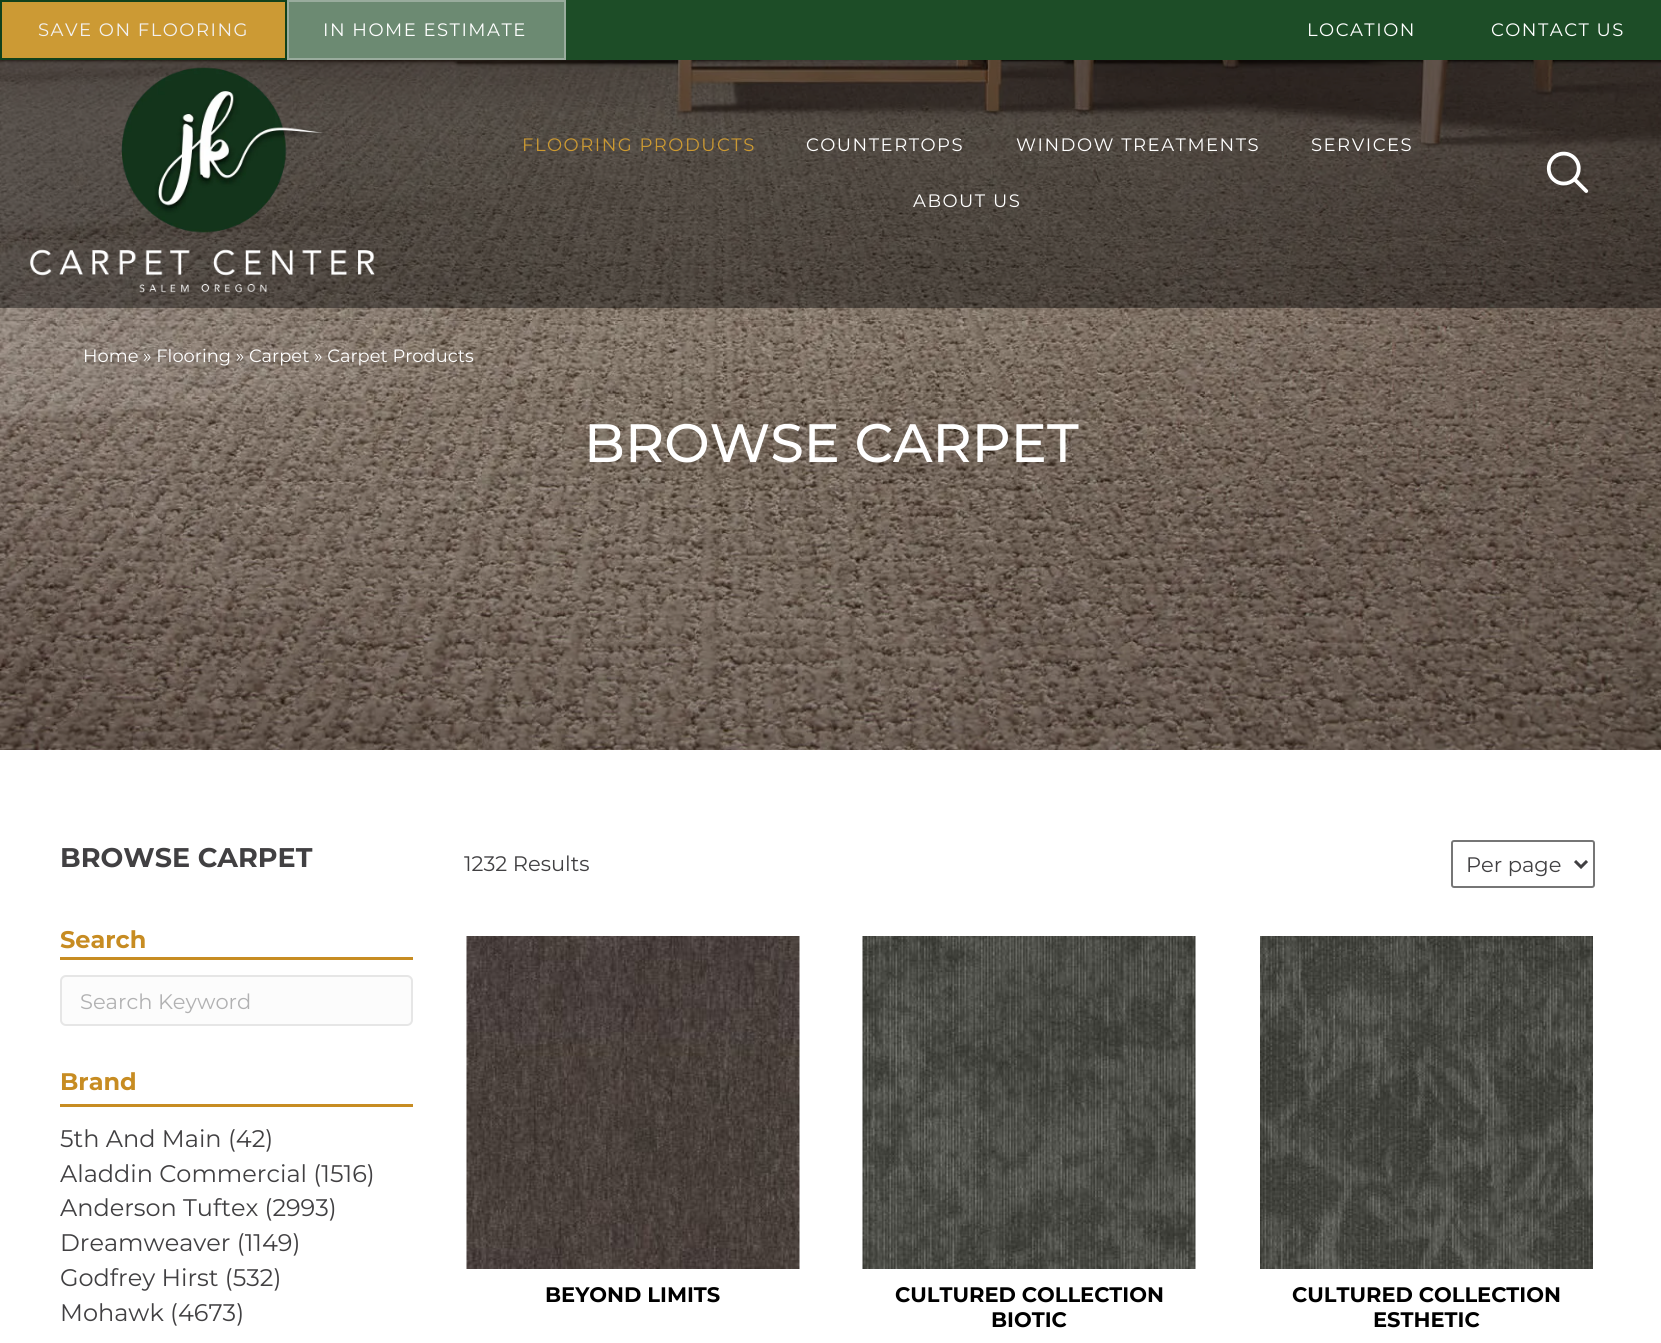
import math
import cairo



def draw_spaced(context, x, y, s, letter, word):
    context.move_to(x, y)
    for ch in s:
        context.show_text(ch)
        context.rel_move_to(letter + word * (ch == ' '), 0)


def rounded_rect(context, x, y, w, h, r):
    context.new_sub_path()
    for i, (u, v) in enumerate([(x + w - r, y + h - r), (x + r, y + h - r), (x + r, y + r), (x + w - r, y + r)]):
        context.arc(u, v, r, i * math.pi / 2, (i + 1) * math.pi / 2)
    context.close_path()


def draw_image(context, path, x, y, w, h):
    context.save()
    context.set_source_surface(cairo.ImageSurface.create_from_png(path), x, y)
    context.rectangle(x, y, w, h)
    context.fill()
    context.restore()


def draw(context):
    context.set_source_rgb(1, 1, 1)
    context.paint()
    context.set_source_rgb(29 / 255, 77 / 255, 39 / 255)
    context.rectangle(566, 0, 1095, 60)
    context.fill()
    context.set_source_rgb(204 / 255, 154 / 255, 52 / 255)
    context.rectangle(1, 1, 285, 58)
    context.fill_preserve()
    context.set_source_rgb(17 / 255, 65 / 255, 27 / 255)
    context.stroke()
    context.set_source_rgb(108 / 255, 138 / 255, 114 / 255)
    context.rectangle(288, 1, 277, 58)
    context.fill_preserve()
    context.set_source_rgb(153 / 255, 172 / 255, 157 / 255)
    context.stroke()
    draw_image(context, "images/3.png", 0, 60, 1661, 690)
    context.set_source_rgba(0, 0, 0, 0.42)
    context.rectangle(0, 60, 1661, 248)
    context.fill()
    draw_image(context, "images/1.png", 30, 67, 345, 226)
    draw_image(context, "images/2.png", 1546, 151, 43, 42)
    rounded_rect(context, 1452, 841, 142, 46, 2)
    context.set_source_rgb(118 / 255, 118 / 255, 118 / 255)
    context.stroke()
    context.new_path()
    context.move_to(1575, 861)
    context.line_to(1581, 867)
    context.line_to(1587, 861)
    context.set_source_rgb(65 / 255, 64 / 255, 66 / 255)
    context.set_line_width(3)
    context.stroke()
    context.set_source_rgb(199 / 255, 140 / 255, 34 / 255)
    context.rectangle(60, 957, 353, 3)
    context.fill()
    context.set_source_rgb(252 / 255, 252 / 255, 252 / 255)
    rounded_rect(context, 61, 976, 351, 49, 5)
    context.fill_preserve()
    context.set_source_rgb(230 / 255, 230 / 255, 230 / 255)
    context.set_line_width(2)
    context.stroke()
    context.set_source_rgb(199 / 255, 140 / 255, 34 / 255)
    context.rectangle(60, 1104, 353, 3)
    context.fill()
    draw_image(context, "images/4.png", 466, 936, 334, 333)
    draw_image(context, "images/5.png", 862, 936, 334, 333)
    draw_image(context, "images/6.png", 1260, 936, 333, 333)
    context.select_font_face("Montserrat")
    context.set_font_size(18)
    context.set_source_rgb(242 / 255, 241 / 255, 241 / 255)
    draw_spaced(context, 38, 36, "SAVE ON FLOORING", 1.5, 0)
    context.set_source_rgb(1, 1, 1)
    draw_spaced(context, 323, 36, "IN HOME ESTIMATE", 1.5, 0)
    draw_spaced(context, 1307, 36, "LOCATION", 1.5, 0)
    draw_spaced(context, 1491, 36, "CONTACT US", 1.5, 0)
    context.set_source_rgb(203 / 255, 153 / 255, 50 / 255)
    draw_spaced(context, 522, 151, "FLOORING PRODUCTS", 1.5, 0)
    context.set_source_rgb(1, 1, 1)
    draw_spaced(context, 806, 151, "COUNTERTOPS", 1.5, 0)
    draw_spaced(context, 1016, 151, "WINDOW TREATMENTS", 1.5, 0)
    draw_spaced(context, 1311, 151, "SERVICES", 1.5, 0)
    draw_spaced(context, 913, 207, "ABOUT US", 1.5, 0)
    context.set_font_size(17.85)
    context.move_to(83, 362)
    context.show_text("Home » Flooring » Carpet » Carpet Products")
    context.select_font_face("Montserrat Medium")
    context.set_font_size(54)
    context.move_to(584, 462)
    context.show_text("BROWSE CARPET")
    context.select_font_face("Montserrat", cairo.FontSlant.NORMAL, cairo.FontWeight.BOLD)
    context.set_font_size(27)
    context.set_source_rgb(65 / 255, 64 / 255, 66 / 255)
    context.move_to(60, 867)
    context.show_text("BROWSE CARPET")
    context.select_font_face("Montserrat")
    context.set_font_size(21)
    context.move_to(464, 871)
    context.show_text("1232 Results")
    context.move_to(1466, 872)
    context.show_text("Per page")
    context.select_font_face("Montserrat", cairo.FontSlant.NORMAL, cairo.FontWeight.BOLD)
    context.set_font_size(24)
    context.set_source_rgb(199 / 255, 140 / 255, 34 / 255)
    context.move_to(60, 948)
    context.show_text("Search")
    context.select_font_face("Montserrat")
    context.set_font_size(21)
    context.set_source_rgb(177 / 255, 177 / 255, 178 / 255)
    context.move_to(80, 1009)
    context.show_text("Search Keyword")
    context.select_font_face("Montserrat", cairo.FontSlant.NORMAL, cairo.FontWeight.BOLD)
    context.set_font_size(24)
    context.set_source_rgb(199 / 255, 140 / 255, 34 / 255)
    context.move_to(60, 1090)
    context.show_text("Brand")
    context.select_font_face("Montserrat")
    context.set_source_rgb(65 / 255, 64 / 255, 66 / 255)
    context.move_to(60, 1147)
    context.show_text("5th And Main (42)")
    context.move_to(60, 1182)
    context.show_text("Aladdin Commercial (1516)")
    context.move_to(60, 1216)
    context.show_text("Anderson Tuftex (2993)")
    context.move_to(60, 1251)
    context.show_text("Dreamweaver (1149)")
    context.move_to(60, 1286)
    context.show_text("Godfrey Hirst (532)")
    context.move_to(60, 1321)
    context.show_text("Mohawk (4673)")
    context.select_font_face("Montserrat", cairo.FontSlant.NORMAL, cairo.FontWeight.BOLD)
    context.set_font_size(21)
    context.set_source_rgb(0, 0, 0)
    context.move_to(545, 1302)
    context.show_text("BEYOND LIMITS")
    context.move_to(895, 1302)
    context.show_text("CULTURED COLLECTION")
    context.move_to(991, 1327)
    context.show_text("BIOTIC")
    context.move_to(1292, 1302)
    context.show_text("CULTURED COLLECTION")
    context.move_to(1373, 1327)
    context.show_text("ESTHETIC")


surface = cairo.ImageSurface(cairo.Format.RGB24, 1661, 1343)
context = cairo.Context(surface)
options = cairo.FontOptions()
options.set_hint_metrics(cairo.HintMetrics.OFF)
options.set_hint_style(cairo.HintStyle.NONE)
context.set_font_options(options)
context.set_miter_limit(4)
draw(context)
surface.write_to_png("out.png")
